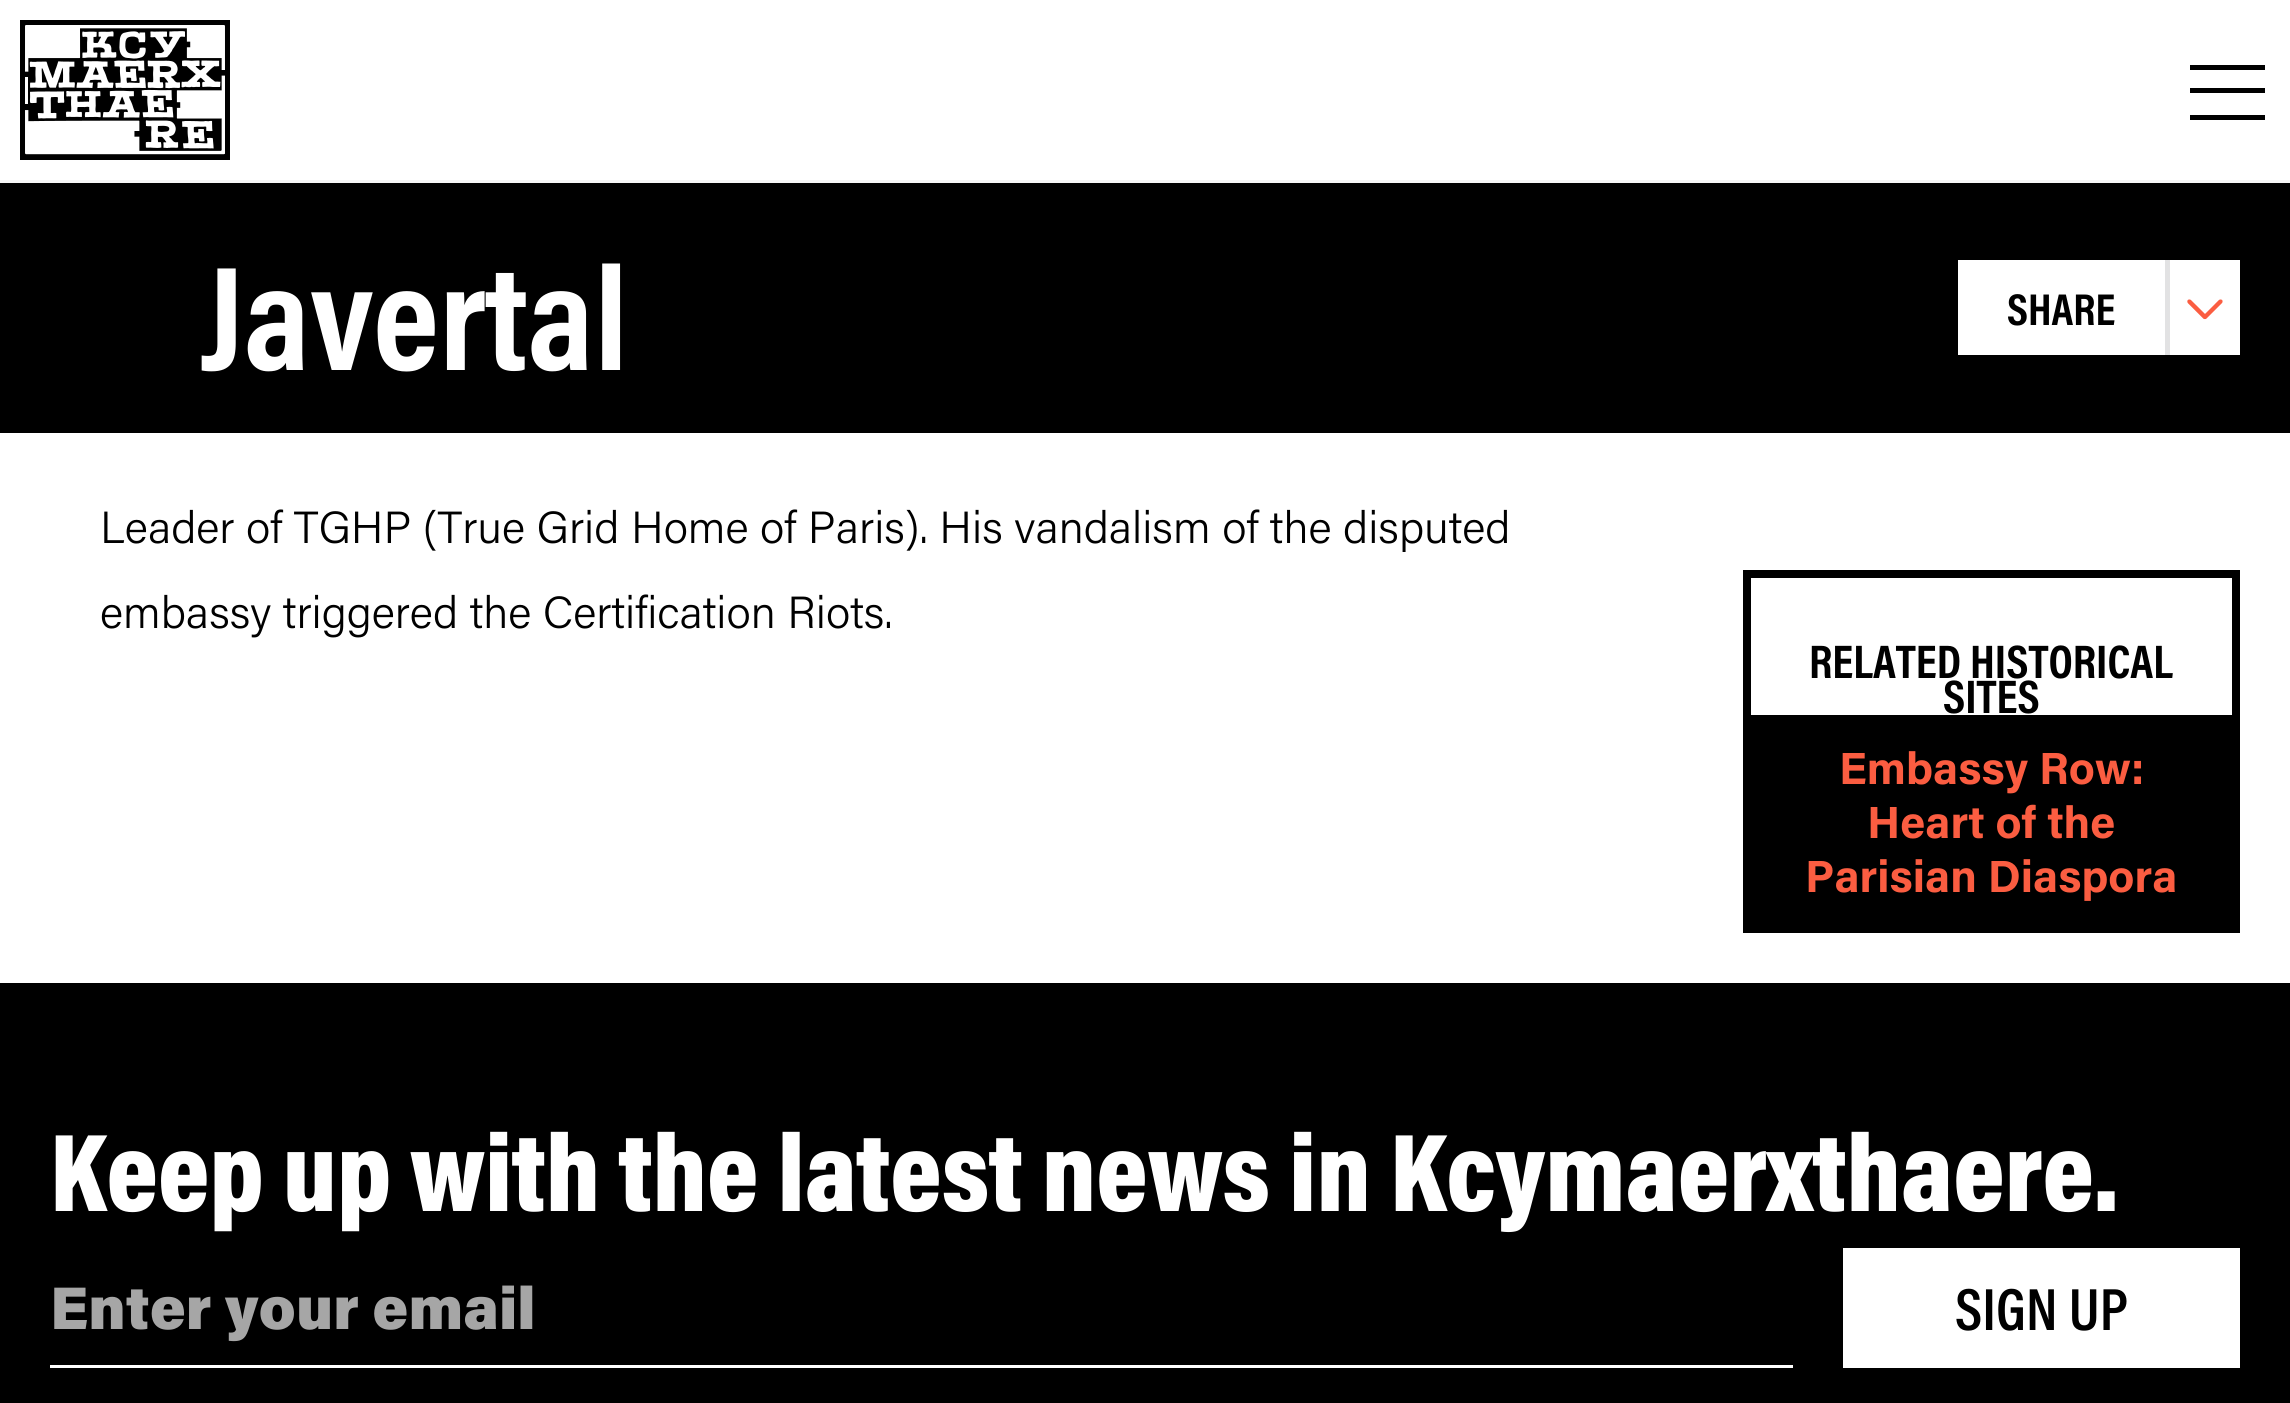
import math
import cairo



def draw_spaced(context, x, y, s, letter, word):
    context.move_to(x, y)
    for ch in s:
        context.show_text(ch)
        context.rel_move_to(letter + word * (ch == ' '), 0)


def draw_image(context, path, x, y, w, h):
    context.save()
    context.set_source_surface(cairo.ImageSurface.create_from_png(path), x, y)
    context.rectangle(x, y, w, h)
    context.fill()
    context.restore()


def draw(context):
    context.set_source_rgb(1, 1, 1)
    context.paint()
    context.set_source_rgb(246 / 255, 246 / 255, 246 / 255)
    context.rectangle(0, 180, 2290, 3)
    context.fill()
    context.set_source_rgb(0, 0, 0)
    context.rectangle(25, 25, 200, 130)
    context.fill()
    draw_image(context, "images/1.png", 25, 25, 200, 130)
    context.rectangle(22.5, 22.5, 205, 135)
    context.set_line_width(5)
    context.stroke()
    context.rectangle(2190, 65, 75, 5)
    context.fill()
    context.rectangle(2190, 88, 75, 5)
    context.fill()
    context.rectangle(2190, 115, 75, 5)
    context.fill()
    context.rectangle(0, 183, 2290, 250)
    context.fill()
    context.set_source_rgb(1, 1, 1)
    context.rectangle(1958, 260, 282, 95)
    context.fill()
    context.set_source_rgb(226 / 255, 226 / 255, 227 / 255)
    context.rectangle(2165, 260, 5, 95)
    context.fill()
    draw_image(context, "images/2.png", 2187, 299, 36, 21)
    context.rectangle(1747, 574, 489, 355)
    context.set_source_rgb(0, 0, 0)
    context.set_line_width(8)
    context.stroke()
    context.rectangle(1751, 715, 481, 210)
    context.fill()
    context.rectangle(0, 983, 2290, 420)
    context.fill()
    context.set_source_rgb(1, 1, 1)
    context.rectangle(50, 1365, 1743, 3)
    context.fill()
    context.rectangle(1843, 1248, 397, 120)
    context.fill()
    context.select_font_face("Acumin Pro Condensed", cairo.FontSlant.NORMAL, cairo.FontWeight.BOLD)
    context.set_font_size(150)
    context.move_to(200, 370)
    context.show_text("Javertal")
    context.set_font_size(45)
    context.set_source_rgb(0, 0, 0)
    context.move_to(2007, 325)
    context.show_text("SHARE")
    context.select_font_face("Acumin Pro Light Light")
    context.move_to(100, 543)
    context.show_text("Leader of TGHP (True Grid Home of Paris). His vandalism of the disputed")
    context.move_to(100, 628)
    context.show_text("embassy triggered the Certification Riots.")
    context.select_font_face("Acumin Pro Condensed", cairo.FontSlant.NORMAL, cairo.FontWeight.BOLD)
    context.set_font_size(47.5)
    context.move_to(1809, 678)
    context.show_text("RELATED HISTORICAL")
    context.move_to(1943, 713)
    context.show_text("SITES")
    context.select_font_face("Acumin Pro", cairo.FontSlant.NORMAL, cairo.FontWeight.BOLD)
    context.set_font_size(45)
    context.set_source_rgb(251 / 255, 93 / 255, 65 / 255)
    context.move_to(1839, 784)
    context.show_text("Embassy Row:")
    context.move_to(1867, 838)
    context.show_text("Heart of the")
    context.move_to(1805, 892)
    context.show_text("Parisian Diaspora")
    context.select_font_face("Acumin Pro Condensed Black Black")
    context.set_font_size(112)
    context.set_source_rgb(1, 1, 1)
    draw_spaced(context, 50, 1211, "Keep up with the latest news in Kcymaerxthaere.", 0, -0.25)
    context.select_font_face("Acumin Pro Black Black")
    context.set_font_size(60)
    context.set_source_rgb(166 / 255, 166 / 255, 166 / 255)
    context.move_to(50, 1329)
    context.show_text("Enter your email")
    context.select_font_face("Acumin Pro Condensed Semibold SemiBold")
    context.set_source_rgb(0, 0, 0)
    context.move_to(1955, 1330)
    context.show_text("SIGN UP")


surface = cairo.ImageSurface(cairo.Format.RGB24, 2290, 1403)
context = cairo.Context(surface)
options = cairo.FontOptions()
options.set_hint_metrics(cairo.HintMetrics.OFF)
options.set_hint_style(cairo.HintStyle.NONE)
context.set_font_options(options)
context.set_miter_limit(4)
draw(context)
surface.write_to_png("out.png")
